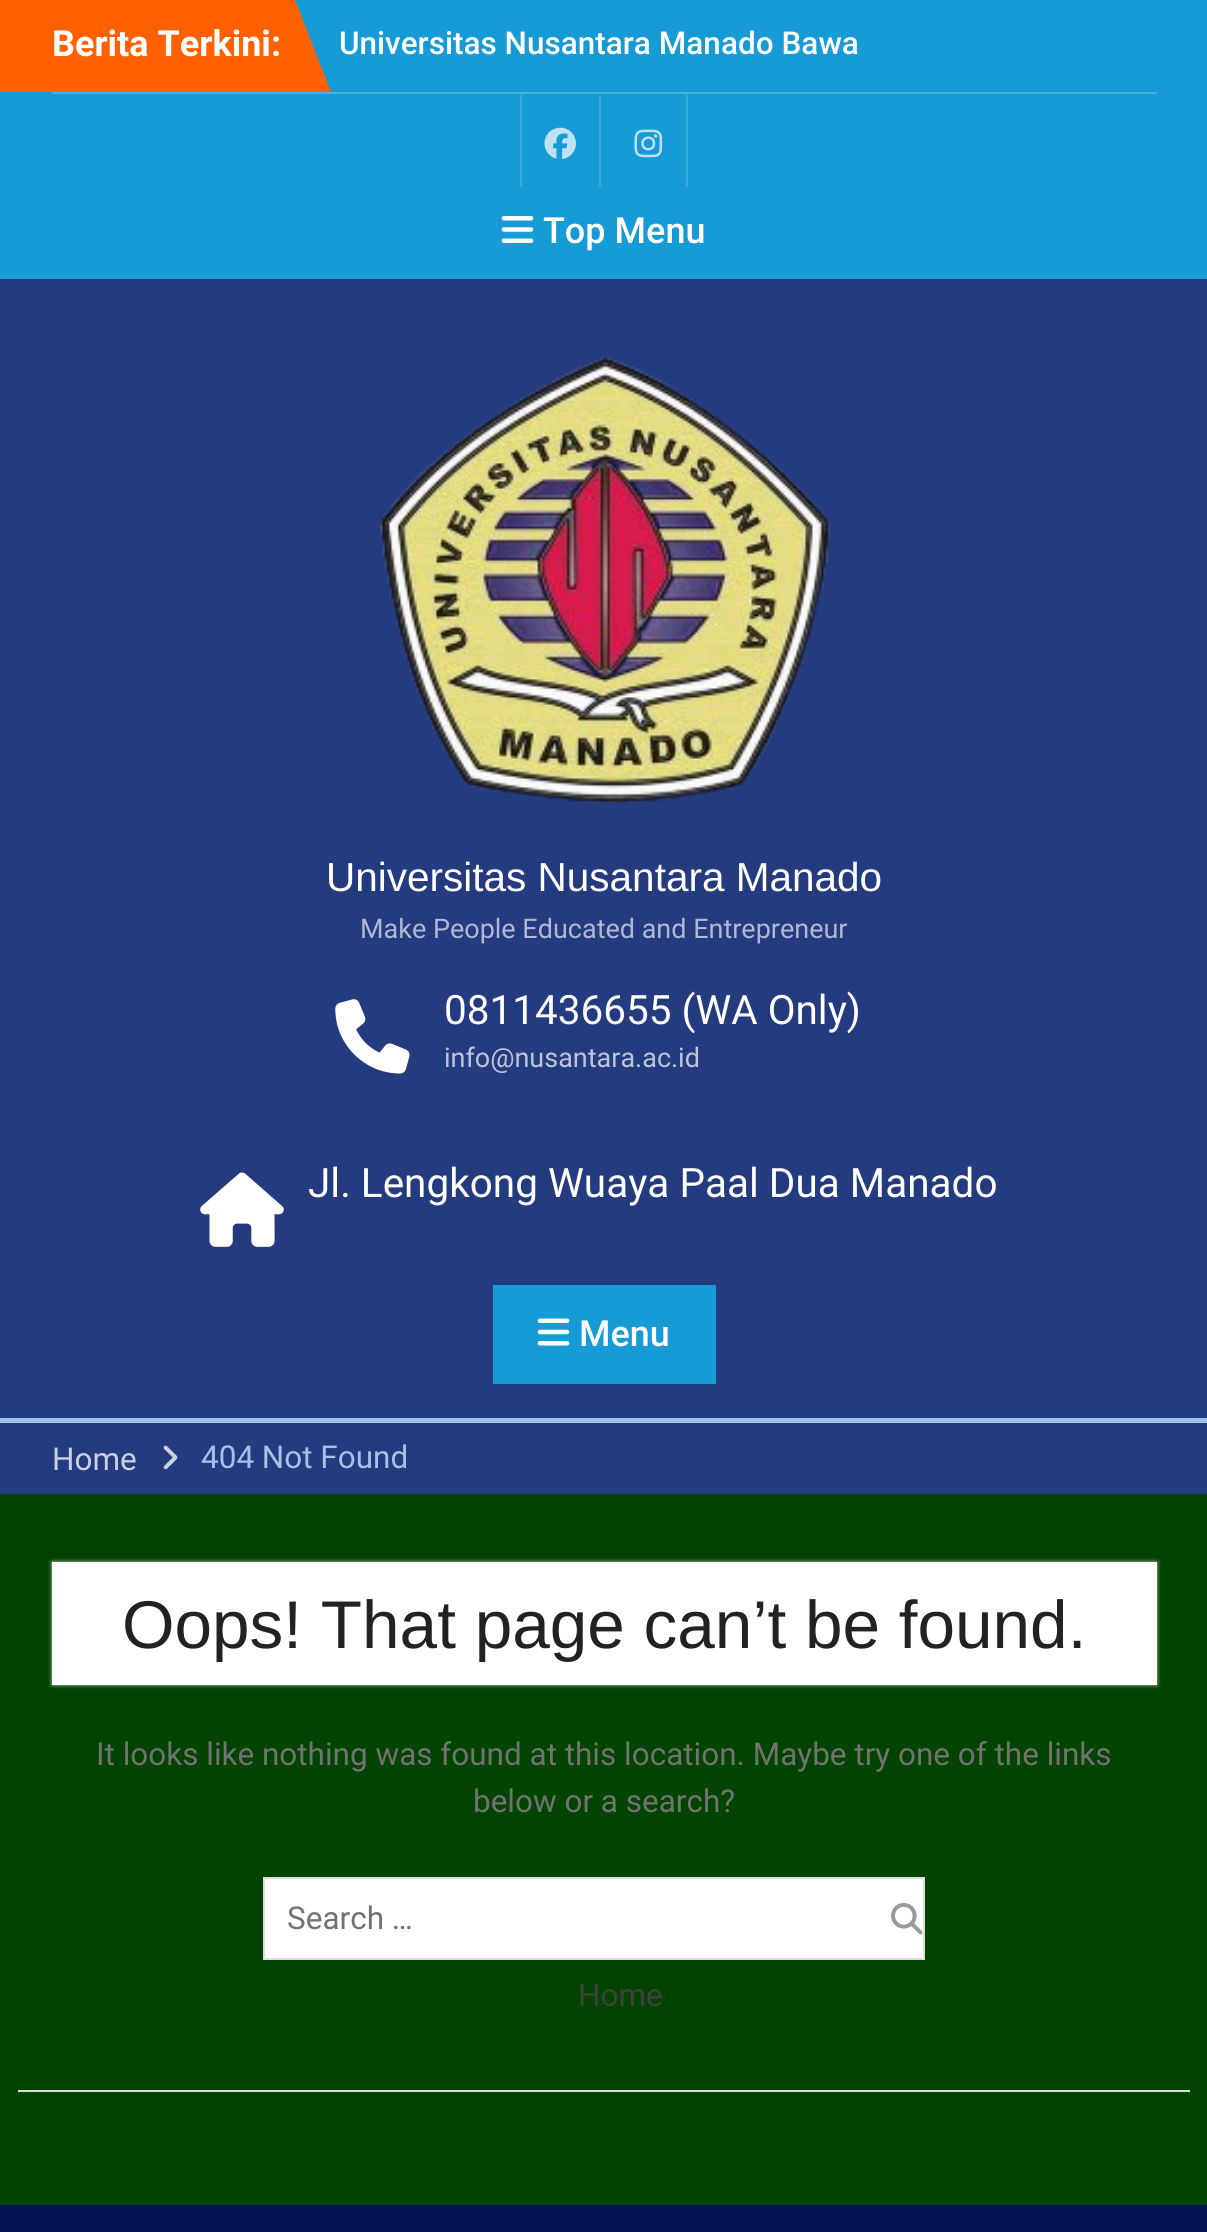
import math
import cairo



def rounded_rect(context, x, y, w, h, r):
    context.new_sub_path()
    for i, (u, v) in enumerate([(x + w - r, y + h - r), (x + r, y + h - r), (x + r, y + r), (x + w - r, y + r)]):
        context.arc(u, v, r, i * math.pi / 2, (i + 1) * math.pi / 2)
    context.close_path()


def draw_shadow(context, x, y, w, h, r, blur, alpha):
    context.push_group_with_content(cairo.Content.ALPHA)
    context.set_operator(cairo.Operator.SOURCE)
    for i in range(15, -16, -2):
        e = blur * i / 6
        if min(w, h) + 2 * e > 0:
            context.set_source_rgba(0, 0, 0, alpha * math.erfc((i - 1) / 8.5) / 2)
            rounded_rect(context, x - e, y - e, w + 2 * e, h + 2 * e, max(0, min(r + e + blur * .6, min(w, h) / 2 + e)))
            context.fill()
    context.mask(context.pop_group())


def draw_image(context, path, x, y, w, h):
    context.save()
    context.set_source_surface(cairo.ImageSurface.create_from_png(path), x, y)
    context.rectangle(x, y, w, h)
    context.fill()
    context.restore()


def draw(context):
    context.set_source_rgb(0, 68 / 255, 0)
    context.paint()
    context.set_source_rgb(23 / 255, 155 / 255, 215 / 255)
    context.rectangle(0, 0, 1207, 279)
    context.fill()
    context.set_source_rgb(1, 96 / 255, 0)
    context.rectangle(0, 0, 295, 92)
    context.fill()
    context.new_path()
    context.move_to(295, 92)
    context.line_to(295, 0)
    context.line_to(331, 92)
    context.close_path()
    context.fill()
    context.set_source_rgb(69 / 255, 175 / 255, 223 / 255)
    context.rectangle(52, 92, 1105, 2)
    context.fill()
    context.set_source_rgb(58 / 255, 170 / 255, 221 / 255)
    context.rectangle(599, 95, 2, 92)
    context.fill()
    context.rectangle(520, 95, 2, 92)
    context.fill()
    draw_image(context, "images/1.png", 544, 127, 32, 32)
    context.rectangle(686, 95, 2, 92)
    context.fill()
    draw_image(context, "images/2.png", 634, 129, 29, 29)
    draw_image(context, "images/3.png", 501, 216, 33, 27)
    context.set_source_rgb(37 / 255, 59 / 255, 128 / 255)
    context.rectangle(0, 279, 1207, 1139)
    context.fill()
    draw_image(context, "images/4.png", 380, 357, 450, 447)
    draw_image(context, "images/5.png", 335, 999, 75, 75)
    draw_image(context, "images/6.png", 200, 1172, 84, 75)
    context.set_source_rgb(23 / 255, 155 / 255, 215 / 255)
    context.rectangle(493, 1285, 223, 99)
    context.fill()
    draw_image(context, "images/7.png", 537, 1318, 33, 28)
    context.set_source_rgb(37 / 255, 59 / 255, 128 / 255)
    context.rectangle(0, 1423, 1207, 71)
    context.fill()
    context.set_source_rgb(160 / 255, 197 / 255, 232 / 255)
    context.rectangle(0, 1418, 1207, 5)
    context.fill()
    draw_image(context, "images/8.png", 163, 1445, 15, 25)
    context.set_source_rgb(221 / 255, 221 / 255, 221 / 255)
    context.rectangle(18, 2090, 1172, 2)
    context.fill()
    context.set_source_rgb(207 / 255, 207 / 255, 207 / 255)
    draw_shadow(context, 52, 1562, 1105, 123, 0, 2, 1)
    context.set_source_rgb(1, 1, 1)
    context.rectangle(52, 1562, 1105, 123)
    context.fill()
    context.rectangle(264, 1878, 660, 81)
    context.fill_preserve()
    context.set_source_rgb(221 / 255, 221 / 255, 221 / 255)
    context.stroke()
    draw_image(context, "images/9.png", 891, 1903, 32, 32)
    context.set_source_rgb(3 / 255, 19 / 255, 88 / 255)
    context.rectangle(0, 2205, 1207, 27)
    context.fill()
    context.select_font_face("Roboto", cairo.FontSlant.NORMAL, cairo.FontWeight.BOLD)
    context.set_font_size(36)
    context.set_source_rgb(1, 1, 1)
    context.move_to(52, 56)
    context.show_text("Berita Terkini:")
    context.select_font_face("Roboto Medium")
    context.set_font_size(31.5)
    context.move_to(339, 54)
    context.show_text("Universitas Nusantara Manado Bawa")
    context.set_font_size(36)
    context.move_to(543, 243)
    context.show_text("Top Menu")
    context.select_font_face("Liberation Sans")
    context.set_font_size(40.5)
    context.move_to(326, 891)
    context.show_text("Universitas Nusantara Manado")
    context.select_font_face("Roboto")
    context.set_font_size(27)
    context.set_source_rgb(177 / 255, 184 / 255, 209 / 255)
    context.move_to(360, 938)
    context.show_text("Make People Educated and Entrepreneur")
    context.set_font_size(40.5)
    context.set_source_rgb(1, 1, 1)
    context.move_to(444, 1024)
    context.show_text("0811436655 (WA Only)")
    context.set_font_size(27)
    context.set_source_rgb(190 / 255, 196 / 255, 217 / 255)
    context.move_to(444, 1067)
    context.show_text("info@nusantara.ac.id")
    context.set_font_size(40.5)
    context.set_source_rgb(1, 1, 1)
    context.move_to(308, 1197)
    context.show_text("Jl. Lengkong Wuaya Paal Dua Manado")
    context.select_font_face("Roboto Medium")
    context.set_font_size(36)
    context.move_to(579, 1346)
    context.show_text("Menu")
    context.select_font_face("Roboto")
    context.set_font_size(31.5)
    context.set_source_rgb(203 / 255, 208 / 255, 225 / 255)
    context.move_to(52, 1470)
    context.show_text("Home")
    context.set_source_rgb(160 / 255, 197 / 255, 232 / 255)
    context.move_to(201, 1468)
    context.show_text("404 Not Found")
    context.select_font_face("Liberation Sans")
    context.set_font_size(67.5)
    context.set_source_rgb(34 / 255, 34 / 255, 34 / 255)
    context.move_to(122, 1648)
    context.show_text("Oops! That page can’t be found.")
    context.select_font_face("Roboto")
    context.set_font_size(31.5)
    context.set_source_rgb(114 / 255, 114 / 255, 114 / 255)
    context.move_to(96, 1765)
    context.show_text("It looks like nothing was found at this location. Maybe try one of the links")
    context.move_to(473, 1812)
    context.show_text("below or a search?")
    context.move_to(287, 1929)
    context.show_text("Search …")
    context.set_source_rgb(64 / 255, 64 / 255, 64 / 255)
    context.move_to(578, 2006)
    context.show_text("Home")


surface = cairo.ImageSurface(cairo.Format.RGB24, 1207, 2232)
context = cairo.Context(surface)
options = cairo.FontOptions()
options.set_hint_metrics(cairo.HintMetrics.OFF)
options.set_hint_style(cairo.HintStyle.NONE)
context.set_font_options(options)
context.set_miter_limit(4)
draw(context)
surface.write_to_png("out.png")
